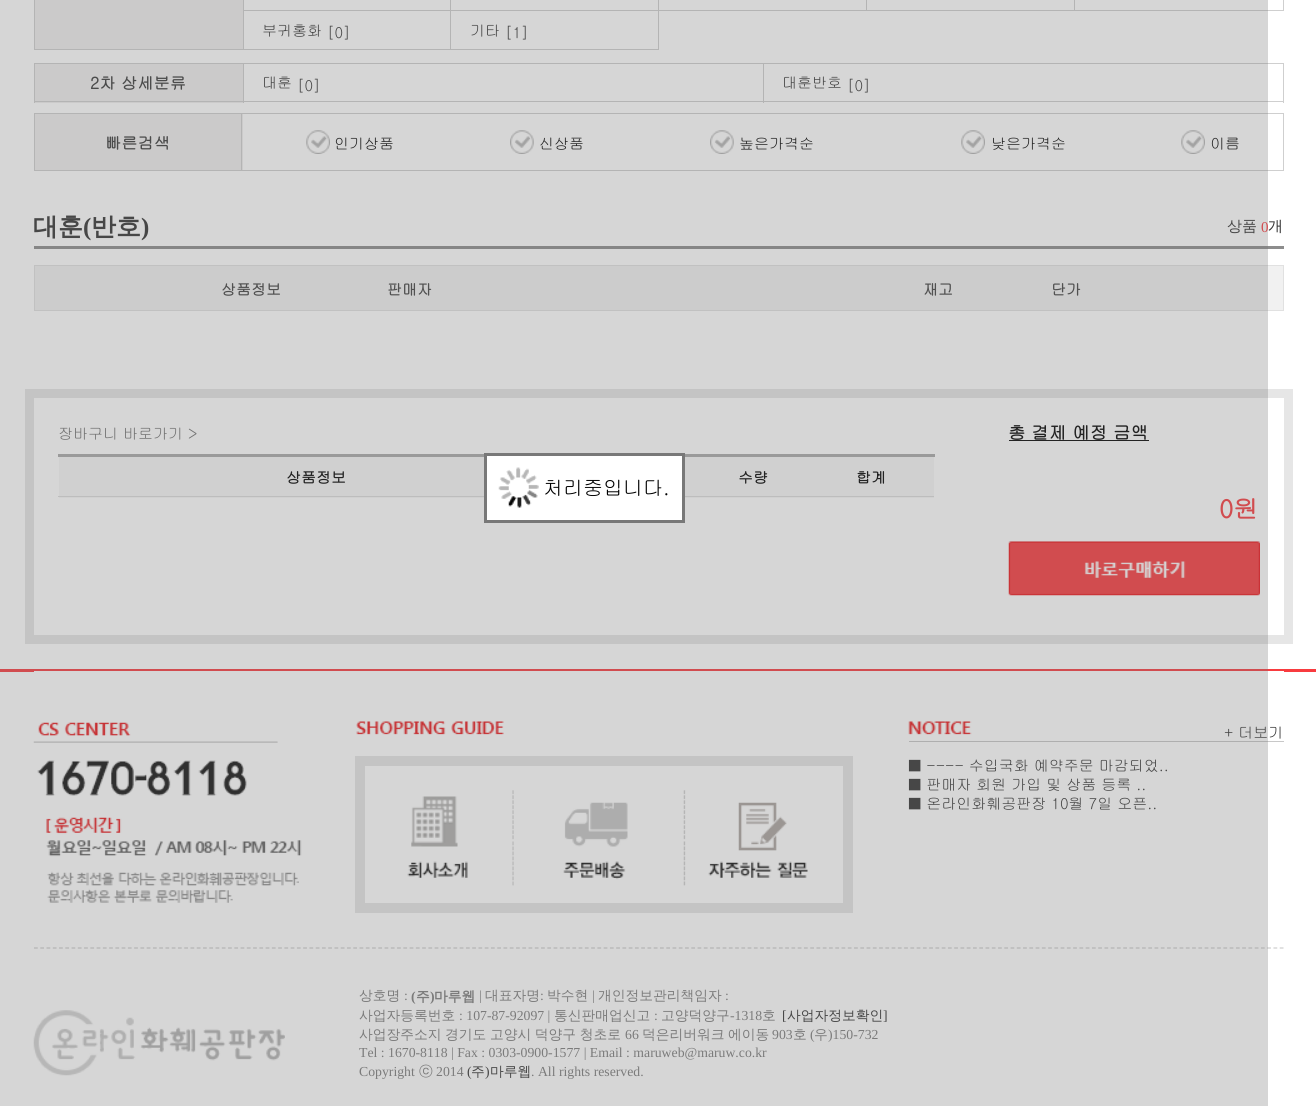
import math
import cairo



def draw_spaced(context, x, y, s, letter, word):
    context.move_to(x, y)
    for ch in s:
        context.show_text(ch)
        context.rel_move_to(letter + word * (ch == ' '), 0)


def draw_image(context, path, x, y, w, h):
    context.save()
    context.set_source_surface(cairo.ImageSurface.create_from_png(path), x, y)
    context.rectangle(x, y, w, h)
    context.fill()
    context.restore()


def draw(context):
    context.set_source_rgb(1, 1, 1)
    context.paint()
    context.set_source_rgb(207 / 255, 207 / 255, 207 / 255)
    context.rectangle(34, 0, 1, 50)
    context.fill()
    context.set_source_rgb(239 / 255, 238 / 255, 238 / 255)
    context.rectangle(35, 0, 208, 49)
    context.fill()
    context.set_source_rgb(207 / 255, 207 / 255, 207 / 255)
    context.rectangle(243, 0, 1, 50)
    context.fill()
    context.rectangle(35, 49, 209, 1)
    context.fill()
    context.rectangle(450, 0, 1, 50)
    context.fill()
    context.rectangle(244, 10, 207, 1)
    context.fill()
    context.rectangle(658, 0, 1, 50)
    context.fill()
    context.rectangle(451, 10, 208, 1)
    context.fill()
    context.rectangle(866, 0, 1, 11)
    context.fill()
    context.rectangle(659, 10, 209, 1)
    context.fill()
    context.rectangle(1074, 0, 1, 11)
    context.fill()
    context.rectangle(868, 10, 207, 1)
    context.fill()
    context.rectangle(1283, 0, 1, 11)
    context.fill()
    context.rectangle(1075, 10, 209, 1)
    context.fill()
    context.rectangle(244, 49, 415, 1)
    context.fill()
    context.rectangle(34, 63, 1250, 1)
    context.fill()
    context.rectangle(34, 63, 1, 40)
    context.fill()
    context.set_source_rgb(239 / 255, 238 / 255, 238 / 255)
    context.rectangle(35, 64, 208, 39)
    context.fill()
    context.set_source_rgb(207 / 255, 207 / 255, 207 / 255)
    context.rectangle(243, 64, 1, 39)
    context.fill()
    context.rectangle(35, 101, 209, 1)
    context.fill()
    context.rectangle(763, 64, 1, 39)
    context.fill()
    context.rectangle(244, 101, 520, 1)
    context.fill()
    context.rectangle(1283, 64, 1, 39)
    context.fill()
    context.rectangle(764, 101, 520, 1)
    context.fill()
    context.rectangle(34, 113, 1250, 1)
    context.fill()
    context.rectangle(34, 113, 1, 58)
    context.fill()
    context.set_source_rgb(239 / 255, 238 / 255, 238 / 255)
    context.rectangle(35, 114, 208, 56)
    context.fill()
    context.set_source_rgb(207 / 255, 207 / 255, 207 / 255)
    context.rectangle(241, 114, 1, 57)
    context.fill()
    context.rectangle(35, 170, 208, 1)
    context.fill()
    context.rectangle(1283, 114, 1, 57)
    context.fill()
    context.rectangle(243, 170, 1041, 1)
    context.fill()
    draw_image(context, "images/1.png", 306, 130, 24, 24)
    draw_image(context, "images/2.png", 510, 130, 24, 24)
    draw_image(context, "images/3.png", 710, 130, 24, 24)
    draw_image(context, "images/1.png", 961, 130, 24, 24)
    draw_image(context, "images/1.png", 1181, 130, 24, 24)
    context.set_source_rgb(141 / 255, 141 / 255, 141 / 255)
    context.rectangle(34, 246, 1250, 3)
    context.fill()
    context.set_source_rgb(241 / 255, 241 / 255, 241 / 255)
    context.rectangle(35, 266, 1248, 44)
    context.fill()
    context.set_source_rgb(225 / 255, 225 / 255, 225 / 255)
    context.rectangle(34, 265, 1250, 1)
    context.fill()
    context.rectangle(1283, 265, 1, 46)
    context.fill()
    context.rectangle(34, 310, 1250, 1)
    context.fill()
    context.rectangle(34, 265, 1, 46)
    context.fill()
    context.rectangle(29.5, 393.5, 1259, 246)
    context.set_source_rgb(230 / 255, 230 / 255, 230 / 255)
    context.set_line_width(9)
    context.stroke()
    context.set_source_rgb(247 / 255, 247 / 255, 247 / 255)
    context.rectangle(59, 457, 425, 41)
    context.fill()
    context.set_source_rgb(219 / 255, 219 / 255, 219 / 255)
    context.rectangle(58, 496, 426, 1)
    context.fill()
    context.set_source_rgb(169 / 255, 169 / 255, 169 / 255)
    context.rectangle(58, 454, 426, 3)
    context.fill()
    context.set_source_rgb(247 / 255, 247 / 255, 247 / 255)
    context.rectangle(685, 457, 249, 41)
    context.fill()
    context.set_source_rgb(219 / 255, 219 / 255, 219 / 255)
    context.rectangle(685, 496, 249, 1)
    context.fill()
    context.set_source_rgb(169 / 255, 169 / 255, 169 / 255)
    context.rectangle(685, 454, 250, 3)
    context.fill()
    context.set_source_rgb(0, 0, 0)
    context.rectangle(1009, 440, 140, 1)
    context.fill()
    context.set_source_rgb(239 / 255, 239 / 255, 239 / 255)
    context.rectangle(1009, 541, 251, 54)
    context.fill()
    draw_image(context, "images/4.png", 1008, 541, 252, 55)
    context.set_source_rgb(248 / 255, 59 / 255, 63 / 255)
    context.rectangle(0, 669, 1316, 3)
    context.fill()
    context.set_source_rgb(1, 1, 1)
    context.rectangle(34, 671, 1250, 1)
    context.fill()
    draw_image(context, "images/5.png", 33, 722, 269, 181)
    draw_image(context, "images/6.png", 356, 721, 148, 14)
    context.rectangle(360, 761, 488, 147)
    context.set_source_rgb(230 / 255, 230 / 255, 230 / 255)
    context.set_line_width(10)
    context.stroke()
    draw_image(context, "images/7.png", 407, 790, 107, 96)
    draw_image(context, "images/8.png", 513, 790, 115, 95)
    draw_image(context, "images/9.png", 683, 790, 125, 96)
    draw_image(context, "images/10.png", 908, 721, 64, 14)
    context.set_source_rgb(200 / 255, 200 / 255, 200 / 255)
    context.rectangle(909, 741, 375, 1)
    context.fill()
    draw_image(context, "images/11.png", 33, 1010, 252, 66)
    context.new_path()
    context.move_to(34, 948)
    context.line_to(1284, 948)
    context.set_source_rgb(205 / 255, 205 / 255, 205 / 255)
    context.set_line_width(1.2)
    context.set_dash([3.75, 2.51])
    context.stroke()
    context.select_font_face("Gulim")
    context.set_font_size(15)
    context.set_source_rgb(51 / 255, 51 / 255, 51 / 255)
    context.move_to(262, 36)
    context.show_text("부귀홍화")
    context.move_to(327, 38)
    context.show_text("[0]")
    context.move_to(470, 36)
    context.show_text("기타")
    context.move_to(505, 38)
    context.show_text("[1]")
    context.select_font_face("Gulim", cairo.FontSlant.NORMAL, cairo.FontWeight.BOLD)
    context.set_font_size(16.25)
    context.set_source_rgb(57 / 255, 57 / 255, 57 / 255)
    context.move_to(90, 89)
    context.show_text("2차 상세분류")
    context.select_font_face("Gulim")
    context.set_font_size(15)
    context.set_source_rgb(51 / 255, 51 / 255, 51 / 255)
    context.move_to(262, 88)
    context.show_text("대훈")
    context.move_to(297, 91)
    context.show_text("[0]")
    context.move_to(782, 88)
    context.show_text("대훈반호")
    context.move_to(847, 91)
    context.show_text("[0]")
    context.select_font_face("Gulim", cairo.FontSlant.NORMAL, cairo.FontWeight.BOLD)
    context.set_font_size(16.25)
    context.set_source_rgb(57 / 255, 57 / 255, 57 / 255)
    context.move_to(105, 149)
    context.show_text("빠른검색")
    context.select_font_face("Gulim")
    context.set_font_size(15)
    context.set_source_rgb(0, 0, 0)
    context.move_to(334, 149)
    context.show_text("인기상품")
    context.move_to(539, 149)
    context.show_text("신상품")
    context.move_to(739, 149)
    context.show_text("높은가격순")
    context.move_to(991, 149)
    context.show_text("낮은가격순")
    context.move_to(1210, 149)
    context.show_text("이름")
    context.select_font_face("WenQuanYi Zen Hei", cairo.FontSlant.NORMAL, cairo.FontWeight.BOLD)
    context.set_font_size(25)
    context.set_source_rgb(51 / 255, 51 / 255, 51 / 255)
    context.move_to(33, 235)
    context.show_text("대훈")
    context.select_font_face("Liberation Serif", cairo.FontSlant.NORMAL, cairo.FontWeight.BOLD)
    context.move_to(83, 235)
    context.show_text("(")
    context.select_font_face("WenQuanYi Zen Hei", cairo.FontSlant.NORMAL, cairo.FontWeight.BOLD)
    context.move_to(91, 235)
    context.show_text("반호")
    context.select_font_face("Liberation Serif", cairo.FontSlant.NORMAL, cairo.FontWeight.BOLD)
    context.move_to(141, 235)
    context.show_text(")")
    context.select_font_face("WenQuanYi Zen Hei Medium")
    context.set_font_size(15)
    context.move_to(1227, 231)
    context.show_text("상품")
    context.select_font_face("Liberation Serif")
    context.set_source_rgb(248 / 255, 59 / 255, 63 / 255)
    context.move_to(1261, 232)
    context.show_text("0")
    context.select_font_face("WenQuanYi Zen Hei Medium")
    context.set_source_rgb(51 / 255, 51 / 255, 51 / 255)
    context.move_to(1268, 231)
    context.show_text("개")
    context.select_font_face("Gulim", cairo.FontSlant.NORMAL, cairo.FontWeight.BOLD)
    context.set_source_rgb(65 / 255, 65 / 255, 65 / 255)
    context.move_to(221, 295)
    context.show_text("상품정보")
    context.move_to(387, 295)
    context.show_text("판매자")
    context.move_to(923, 295)
    context.show_text("재고")
    context.move_to(1051, 295)
    context.show_text("단가")
    context.select_font_face("Gulim")
    context.set_source_rgb(112 / 255, 112 / 255, 112 / 255)
    context.move_to(58, 439)
    context.show_text("장바구니 바로가기 >")
    context.select_font_face("Gulim", cairo.FontSlant.NORMAL, cairo.FontWeight.BOLD)
    context.set_source_rgb(0, 0, 0)
    context.move_to(286, 483)
    context.show_text("상품정보")
    context.move_to(738, 483)
    context.show_text("수량")
    context.move_to(856, 483)
    context.show_text("합계")
    context.set_font_size(17.5)
    context.move_to(1008, 439)
    context.show_text("총 결제 예정 금액")
    context.set_font_size(25)
    context.set_source_rgb(248 / 255, 59 / 255, 63 / 255)
    context.move_to(1219, 518)
    context.show_text("0원")
    context.select_font_face("Gulim")
    context.set_font_size(15)
    context.set_source_rgb(51 / 255, 51 / 255, 51 / 255)
    context.move_to(1224, 738)
    context.show_text("+ 더보기")
    context.move_to(908, 771)
    context.show_text("■ ---- 수입국화 예약주문 마감되었..")
    context.move_to(908, 790)
    context.show_text("■ 판매자 회원 가입 및 상품 등록 ..")
    context.move_to(908, 809)
    context.show_text("■ 온라인화훼공판장 10월 7일 오픈..")
    context.select_font_face("WenQuanYi Zen Hei Medium")
    context.set_font_size(13.75)
    context.set_source_rgb(125 / 255, 125 / 255, 125 / 255)
    context.move_to(359, 1000)
    context.show_text("상호명")
    context.select_font_face("Liberation Serif")
    context.move_to(404, 1000)
    context.show_text(":")
    context.select_font_face("Liberation Serif", cairo.FontSlant.NORMAL, cairo.FontWeight.BOLD)
    context.move_to(411, 1001)
    context.show_text("(")
    context.select_font_face("WenQuanYi Zen Hei", cairo.FontSlant.NORMAL, cairo.FontWeight.BOLD)
    context.move_to(416, 1001)
    context.show_text("주")
    context.select_font_face("Liberation Serif", cairo.FontSlant.NORMAL, cairo.FontWeight.BOLD)
    context.move_to(430, 1001)
    context.show_text(")")
    context.select_font_face("WenQuanYi Zen Hei", cairo.FontSlant.NORMAL, cairo.FontWeight.BOLD)
    context.move_to(434, 1001)
    context.show_text("마루웹")
    context.select_font_face("Liberation Serif")
    context.move_to(479, 1000)
    context.show_text("|")
    context.select_font_face("WenQuanYi Zen Hei Medium")
    context.move_to(485, 1000)
    context.show_text("대표자명")
    context.select_font_face("Liberation Serif")
    context.move_to(540, 1000)
    context.show_text(":")
    context.select_font_face("WenQuanYi Zen Hei Medium")
    context.move_to(547, 1000)
    context.show_text("박수현")
    context.select_font_face("Liberation Serif")
    context.move_to(592, 1000)
    context.show_text("|")
    context.select_font_face("WenQuanYi Zen Hei Medium")
    context.move_to(598, 1000)
    context.show_text("개인정보관리책임자")
    context.select_font_face("Liberation Serif")
    context.move_to(725, 1000)
    context.show_text(":")
    context.select_font_face("WenQuanYi Zen Hei Medium")
    context.move_to(359, 1020)
    context.show_text("사업자등록번호")
    context.select_font_face("Liberation Serif")
    context.move_to(459, 1020)
    context.show_text(": 107-87-92097 |")
    context.select_font_face("WenQuanYi Zen Hei Medium")
    context.move_to(554, 1020)
    context.show_text("통신판매업신고")
    context.select_font_face("Liberation Serif")
    context.move_to(654, 1020)
    context.show_text(":")
    context.select_font_face("WenQuanYi Zen Hei Medium")
    context.move_to(661, 1020)
    context.show_text("고양덕양구")
    context.select_font_face("Liberation Serif")
    context.move_to(730, 1020)
    context.show_text("-1318")
    context.select_font_face("WenQuanYi Zen Hei Medium")
    context.move_to(762, 1020)
    context.show_text("호")
    context.select_font_face("Liberation Serif")
    context.set_source_rgb(51 / 255, 51 / 255, 51 / 255)
    context.move_to(782, 1020)
    context.show_text("[")
    context.select_font_face("WenQuanYi Zen Hei Medium")
    context.move_to(787, 1020)
    context.show_text("사업자정보확인")
    context.select_font_face("Liberation Serif")
    context.move_to(883, 1020)
    context.show_text("]")
    context.select_font_face("WenQuanYi Zen Hei Medium")
    context.set_source_rgb(125 / 255, 125 / 255, 125 / 255)
    draw_spaced(context, 359, 1039, "사업장주소지 경기도 고양시 덕양구 청초로", 0, -0.5)
    context.select_font_face("Liberation Serif")
    context.move_to(625, 1039)
    context.show_text("66")
    context.select_font_face("WenQuanYi Zen Hei Medium")
    draw_spaced(context, 642, 1039, "덕은리버워크 에이동", 0, -0.5)
    context.select_font_face("Liberation Serif")
    context.move_to(772, 1039)
    context.show_text("903")
    context.select_font_face("WenQuanYi Zen Hei Medium")
    context.move_to(793, 1039)
    context.show_text("호")
    context.select_font_face("Liberation Serif")
    context.move_to(810, 1039)
    context.show_text("(")
    context.select_font_face("WenQuanYi Zen Hei Medium")
    context.move_to(814, 1039)
    context.show_text("우")
    context.select_font_face("Liberation Serif")
    context.move_to(828, 1039)
    context.show_text(")150-732")
    context.move_to(359, 1057)
    context.show_text("Tel : 1670-8118 | Fax : 0303-0900-1577 | Email : maruweb@maruw.co.kr")
    context.move_to(359, 1076)
    context.show_text("Copyright")
    context.select_font_face("WenQuanYi Zen Hei Medium")
    context.move_to(419, 1076)
    context.show_text("ⓒ")
    context.select_font_face("Liberation Serif")
    context.move_to(436, 1076)
    context.show_text("2014")
    context.set_source_rgb(51 / 255, 51 / 255, 51 / 255)
    context.move_to(467, 1076)
    context.show_text("(")
    context.select_font_face("WenQuanYi Zen Hei Medium")
    context.move_to(471, 1076)
    context.show_text("주")
    context.select_font_face("Liberation Serif")
    context.move_to(485, 1076)
    context.show_text(")")
    context.select_font_face("WenQuanYi Zen Hei Medium")
    context.move_to(490, 1076)
    context.show_text("마루웹")
    context.select_font_face("Liberation Serif")
    context.set_source_rgb(125 / 255, 125 / 255, 125 / 255)
    context.move_to(531, 1076)
    context.show_text(". All rights reserved.")
    context.set_source_rgba(119 / 255, 119 / 255, 119 / 255, 0.3)
    context.rectangle(0, 0, 1268, 1106)
    context.fill()
    context.set_source_rgb(1, 1, 1)
    context.rectangle(485.5, 454.5, 198, 67)
    context.fill_preserve()
    context.set_source_rgb(120 / 255, 120 / 255, 120 / 255)
    context.set_line_width(3)
    context.set_dash([])
    context.stroke()
    draw_image(context, "images/12.png", 498, 467, 41, 41)
    context.select_font_face("Gulim")
    context.set_font_size(20)
    context.set_source_rgb(0, 0, 0)
    context.move_to(543, 495)
    context.show_text("처리중입니다.")


surface = cairo.ImageSurface(cairo.Format.RGB24, 1316, 1106)
context = cairo.Context(surface)
options = cairo.FontOptions()
options.set_hint_metrics(cairo.HintMetrics.OFF)
options.set_hint_style(cairo.HintStyle.NONE)
context.set_font_options(options)
context.set_miter_limit(4)
draw(context)
surface.write_to_png("out.png")
